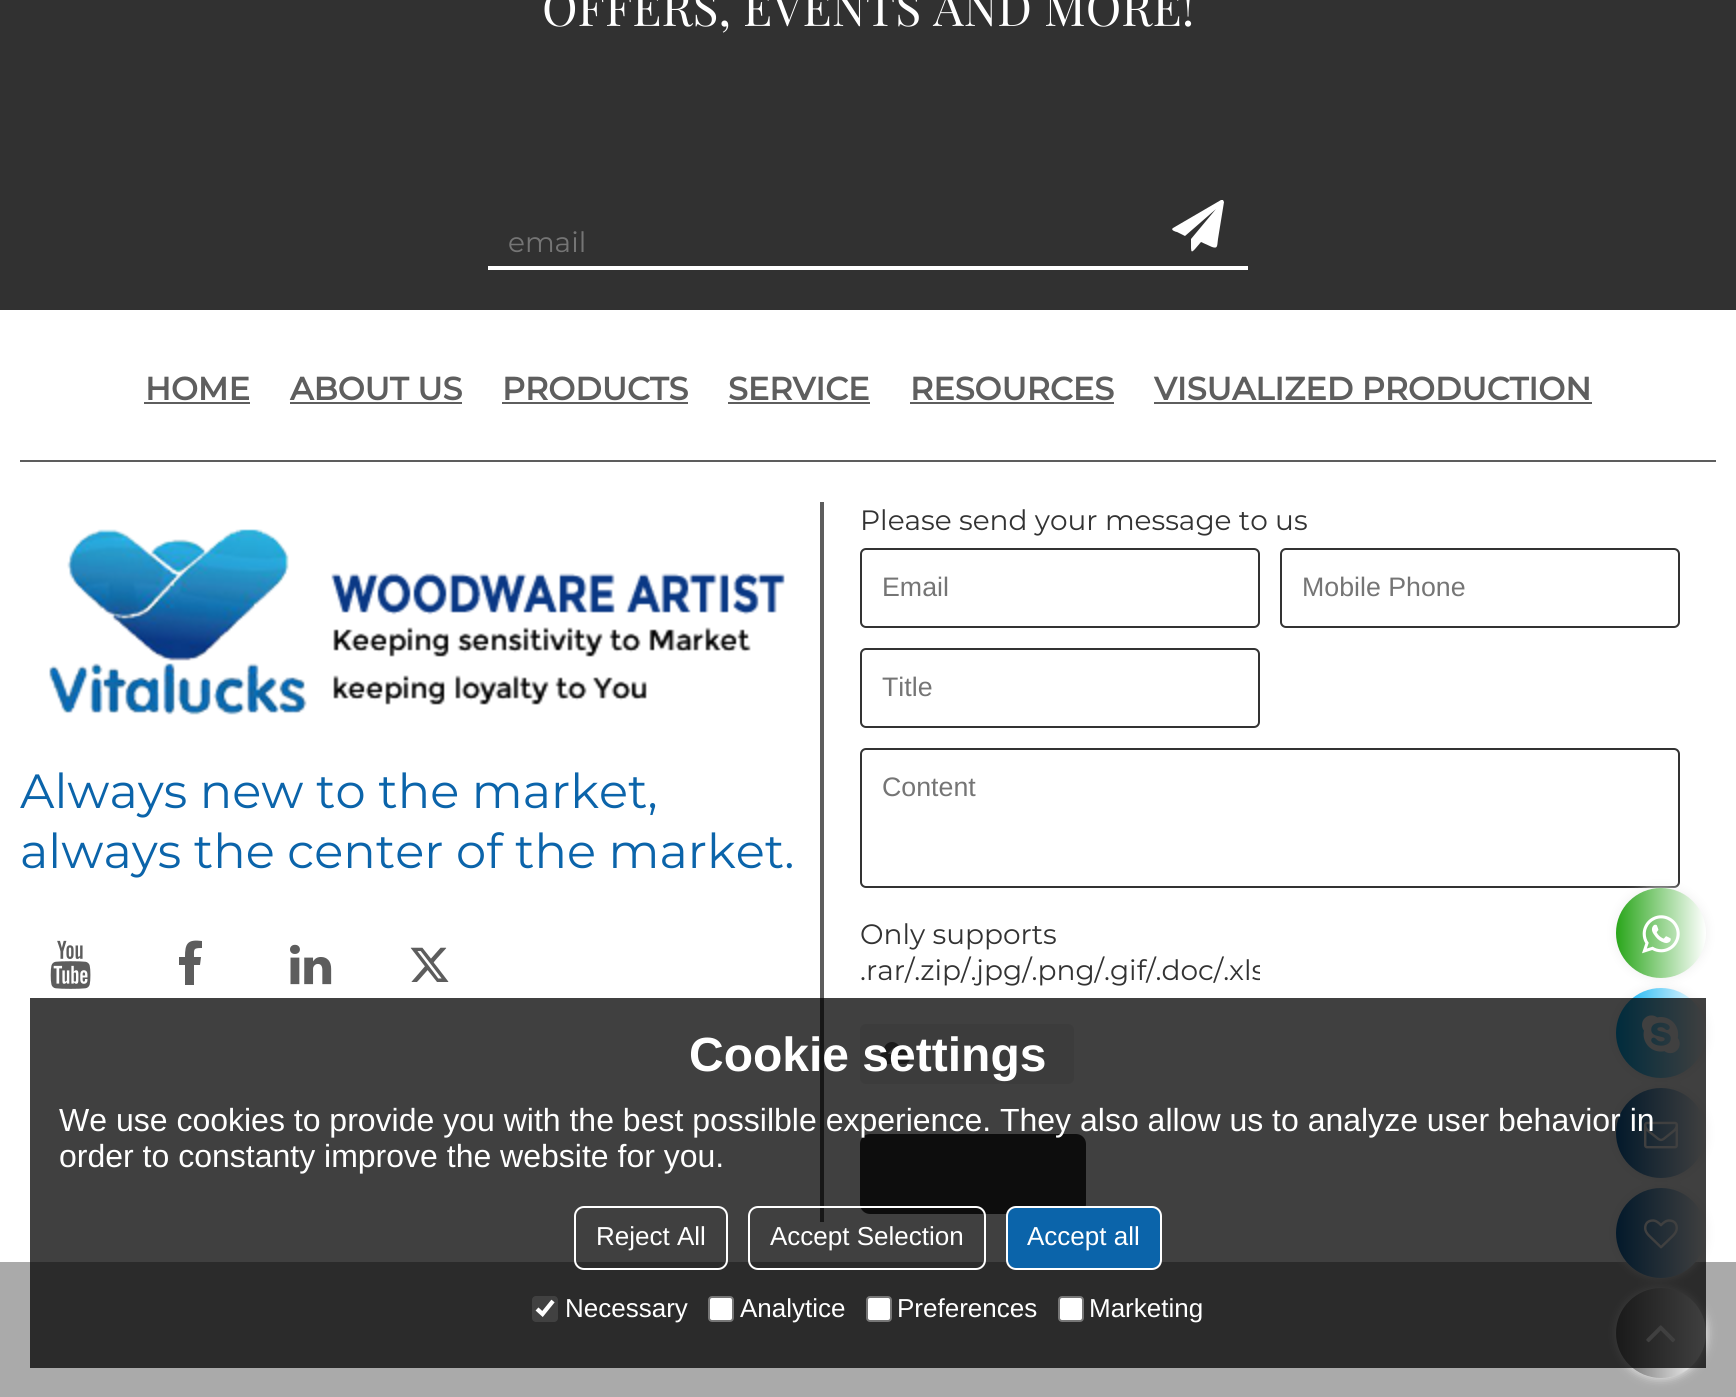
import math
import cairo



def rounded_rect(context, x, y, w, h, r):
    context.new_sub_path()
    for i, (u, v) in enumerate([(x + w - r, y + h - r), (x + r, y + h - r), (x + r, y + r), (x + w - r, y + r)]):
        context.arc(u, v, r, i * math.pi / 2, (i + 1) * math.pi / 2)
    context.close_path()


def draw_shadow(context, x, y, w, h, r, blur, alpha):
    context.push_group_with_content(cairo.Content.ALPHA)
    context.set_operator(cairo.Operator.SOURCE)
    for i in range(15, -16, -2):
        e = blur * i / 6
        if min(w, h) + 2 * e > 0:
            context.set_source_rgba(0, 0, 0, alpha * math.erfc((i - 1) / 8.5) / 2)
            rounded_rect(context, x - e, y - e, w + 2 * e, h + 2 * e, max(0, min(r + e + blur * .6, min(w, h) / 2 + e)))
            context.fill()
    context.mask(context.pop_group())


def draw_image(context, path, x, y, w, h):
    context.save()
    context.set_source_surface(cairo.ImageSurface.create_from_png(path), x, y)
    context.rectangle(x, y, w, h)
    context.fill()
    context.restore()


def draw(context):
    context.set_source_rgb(1, 1, 1)
    context.paint()
    context.set_source_rgb(49 / 255, 49 / 255, 49 / 255)
    context.rectangle(0, 0, 1736, 310)
    context.fill()
    context.set_source_rgb(1, 1, 1)
    context.rectangle(488, 266, 760, 4)
    context.fill()
    context.new_path()
    context.move_to(1223, 200)
    context.line_to(1224, 202)
    context.line_to(1218, 239)
    context.curve_to(1217, 246, 1218, 249, 1212, 247)
    context.line_to(1201, 242)
    context.curve_to(1190, 255, 1191, 255, 1191, 239)
    context.line_to(1216, 209)
    context.line_to(1185, 236)
    context.line_to(1177, 232)
    context.curve_to(1176, 232, 1170, 230, 1173, 228)
    context.line_to(1221, 200)
    context.close_path()
    context.fill()
    context.set_source_rgb(93 / 255, 93 / 255, 93 / 255)
    context.rectangle(20, 460, 1696, 2)
    context.fill()
    context.set_source_rgb(94 / 255, 94 / 255, 94 / 255)
    context.rectangle(144, 402, 106, 2)
    context.fill()
    context.rectangle(290, 402, 172, 2)
    context.fill()
    context.rectangle(502, 402, 186, 2)
    context.fill()
    context.rectangle(728, 402, 142, 2)
    context.fill()
    context.rectangle(910, 402, 204, 2)
    context.fill()
    context.rectangle(1154, 402, 438, 2)
    context.fill()
    draw_image(context, "images/1.png", 49, 529, 736, 186)
    draw_image(context, "images/2.png", 50, 940, 41, 49)
    context.set_source_rgb(93 / 255, 93 / 255, 93 / 255)
    context.new_path()
    context.move_to(202, 941)
    context.line_to(202, 948)
    context.curve_to(193, 948, 194, 949, 194, 957)
    context.line_to(201, 957)
    context.line_to(200, 965)
    context.line_to(194, 965)
    context.line_to(194, 985)
    context.line_to(185, 985)
    context.line_to(185, 965)
    context.line_to(179, 965)
    context.line_to(179, 957)
    context.line_to(185, 957)
    context.curve_to(185, 944, 187, 939, 202, 941)
    context.close_path()
    context.fill()
    draw_image(context, "images/3.png", 290, 944, 42, 41)
    draw_image(context, "images/4.png", 410, 947, 39, 35)
    context.rectangle(820, 502, 4, 720)
    context.fill()
    rounded_rect(context, 861, 549, 398, 78, 5)
    context.set_source_rgb(51 / 255, 51 / 255, 51 / 255)
    context.stroke()
    rounded_rect(context, 1281, 549, 398, 78, 5)
    context.stroke()
    rounded_rect(context, 861, 649, 398, 78, 5)
    context.stroke()
    rounded_rect(context, 861, 749, 818, 138, 5)
    context.stroke()
    context.set_source_rgb(240 / 255, 240 / 255, 240 / 255)
    rounded_rect(context, 860, 1024, 214, 60, 6)
    context.fill()
    draw_image(context, "images/5.png", 880, 1042, 30, 22)
    context.set_source_rgb(51 / 255, 51 / 255, 51 / 255)
    rounded_rect(context, 860, 1134, 226, 80, 10)
    context.fill()
    context.set_source_rgb(170 / 255, 170 / 255, 170 / 255)
    context.rectangle(0, 1262, 1736, 135)
    context.fill()
    context.set_source_rgb(238 / 255, 238 / 255, 238 / 255)
    draw_shadow(context, 1616, 888, 90, 90, 45, 5, 1)
    gradient = cairo.LinearGradient(1616, 933, 1706, 933)
    gradient.add_color_stop_rgba(0, 41 / 255, 166 / 255, 26 / 255, 1)
    gradient.add_color_stop_rgba(1, 1, 1, 1, 1)
    context.set_source(gradient)
    context.arc(1661, 933, 45, 0, 2 * math.pi)
    context.fill()
    context.set_source_rgb(238 / 255, 238 / 255, 238 / 255)
    draw_shadow(context, 1616, 988, 90, 90, 45, 5, 1)
    gradient = cairo.LinearGradient(1616, 1033, 1706, 1033)
    gradient.add_color_stop_rgba(0, 1 / 255, 174 / 255, 243 / 255, 1)
    gradient.add_color_stop_rgba(1, 1, 1, 1, 1)
    context.set_source(gradient)
    context.arc(1661, 1033, 45, 0, 2 * math.pi)
    context.fill()
    draw_image(context, "images/7.png", 1642, 1015, 38, 39)
    context.set_source_rgb(238 / 255, 238 / 255, 238 / 255)
    draw_shadow(context, 1616, 1088, 90, 90, 45, 5, 1)
    gradient = cairo.LinearGradient(1616, 1133, 1706, 1133)
    gradient.add_color_stop_rgba(0, 11 / 255, 100 / 255, 170 / 255, 1)
    gradient.add_color_stop_rgba(1, 1, 1, 1, 1)
    context.set_source(gradient)
    context.arc(1661, 1133, 45, 0, 2 * math.pi)
    context.fill()
    draw_image(context, "images/8.png", 1644, 1121, 34, 28)
    context.set_source_rgb(238 / 255, 238 / 255, 238 / 255)
    draw_shadow(context, 1616, 1188, 90, 90, 45, 5, 1)
    gradient = cairo.LinearGradient(1616, 1233, 1706, 1233)
    gradient.add_color_stop_rgba(0, 11 / 255, 100 / 255, 170 / 255, 1)
    gradient.add_color_stop_rgba(1, 1, 1, 1, 1)
    context.set_source(gradient)
    context.arc(1661, 1233, 45, 0, 2 * math.pi)
    context.fill()
    draw_image(context, "images/9.png", 1644, 1219, 34, 30)
    context.set_source_rgb(238 / 255, 238 / 255, 238 / 255)
    draw_shadow(context, 1616, 1288, 90, 90, 45, 5, 1)
    gradient = cairo.LinearGradient(1616, 1333, 1706, 1333)
    gradient.add_color_stop_rgba(0, 102 / 255, 102 / 255, 102 / 255, 1)
    gradient.add_color_stop_rgba(1, 1, 1, 1, 1)
    context.set_source(gradient)
    context.arc(1661, 1333, 45, 0, 2 * math.pi)
    context.fill()
    draw_image(context, "images/10.png", 1646, 1325, 30, 18)
    context.set_source_rgba(0, 0, 0, 0.75)
    context.rectangle(30, 998, 1676, 370)
    context.fill()
    rounded_rect(context, 575, 1207, 152, 62, 9)
    context.set_source_rgb(1, 1, 1)
    context.stroke()
    rounded_rect(context, 749, 1207, 236, 62, 9)
    context.stroke()
    context.set_source_rgb(11 / 255, 100 / 255, 170 / 255)
    rounded_rect(context, 1007, 1207, 154, 62, 9)
    context.fill_preserve()
    context.set_source_rgb(1, 1, 1)
    context.stroke()
    context.set_source_rgba(118 / 255, 118 / 255, 118 / 255, 0.3)
    rounded_rect(context, 532, 1296, 26, 26, 4)
    context.fill()
    context.new_path()
    context.move_to(537, 1309)
    context.line_to(542.5, 1314)
    context.line_to(553, 1301)
    context.set_source_rgb(1, 1, 1)
    context.set_line_width(4.2)
    context.stroke()
    rounded_rect(context, 709, 1297, 24, 24, 3)
    context.fill_preserve()
    context.set_source_rgb(118 / 255, 118 / 255, 118 / 255)
    context.set_line_width(2)
    context.stroke()
    context.set_source_rgb(1, 1, 1)
    rounded_rect(context, 867, 1297, 24, 24, 3)
    context.fill_preserve()
    context.set_source_rgb(118 / 255, 118 / 255, 118 / 255)
    context.stroke()
    context.set_source_rgb(1, 1, 1)
    rounded_rect(context, 1059, 1297, 24, 24, 3)
    context.fill_preserve()
    context.set_source_rgb(118 / 255, 118 / 255, 118 / 255)
    context.stroke()
    draw_image(context, "images/6.png", 1642, 915, 38, 39)
    context.select_font_face("Playfair Display")
    context.set_font_size(48)
    context.set_source_rgb(1, 1, 1)
    context.move_to(542, 26)
    context.show_text("OFFERS, EVENTS AND MORE!")
    context.select_font_face("Montserrat")
    context.set_font_size(28)
    context.set_source_rgb(117 / 255, 117 / 255, 117 / 255)
    context.move_to(508, 252)
    context.show_text("email")
    context.select_font_face("Montserrat", cairo.FontSlant.NORMAL, cairo.FontWeight.BOLD)
    context.set_font_size(32)
    context.set_source_rgb(94 / 255, 94 / 255, 94 / 255)
    context.move_to(145, 400)
    context.show_text("HOME")
    context.move_to(290, 400)
    context.show_text("ABOUT US")
    context.move_to(502, 400)
    context.show_text("PRODUCTS")
    context.move_to(728, 400)
    context.show_text("SERVICE")
    context.move_to(910, 400)
    context.show_text("RESOURCES")
    context.move_to(1154, 400)
    context.show_text("VISUALIZED PRODUCTION")
    context.select_font_face("Montserrat")
    context.set_font_size(48)
    context.set_source_rgb(11 / 255, 100 / 255, 170 / 255)
    context.move_to(20, 808)
    context.show_text("Always new to the market,")
    context.move_to(20, 868)
    context.show_text("always the center of the market.")
    context.set_font_size(28)
    context.set_source_rgb(51 / 255, 51 / 255, 51 / 255)
    context.move_to(860, 530)
    context.show_text("Please send your message to us")
    context.select_font_face("Liberation Sans")
    context.set_font_size(26.75)
    context.set_source_rgb(117 / 255, 117 / 255, 117 / 255)
    context.move_to(882, 596)
    context.show_text("Email")
    context.move_to(1302, 596)
    context.show_text("Mobile Phone")
    context.move_to(882, 696)
    context.show_text("Title")
    context.move_to(882, 796)
    context.show_text("Content")
    context.select_font_face("Montserrat")
    context.set_font_size(28)
    context.set_source_rgb(51 / 255, 51 / 255, 51 / 255)
    context.move_to(860, 944)
    context.show_text("Only supports")
    context.save()
    context.rectangle(860, 906, 400, 188)
    context.clip()
    context.move_to(860, 980)
    context.show_text(".rar/.zip/.jpg/.png/.gif/.doc/.xls")
    context.restore()
    context.select_font_face("Liberation Sans", cairo.FontSlant.NORMAL, cairo.FontWeight.BOLD)
    context.set_font_size(48)
    context.set_source_rgb(1, 1, 1)
    context.move_to(689, 1071)
    context.show_text("Cookie settings")
    context.select_font_face("Liberation Sans")
    context.set_font_size(32)
    context.move_to(59, 1131)
    context.show_text("We use cookies to provide you with the best possilble experience. They also allow us to analyze user behavior in")
    context.move_to(59, 1167)
    context.show_text("order to constanty improve the website for you.")
    context.set_font_size(26)
    context.move_to(596, 1245)
    context.show_text("Reject All")
    context.move_to(770, 1245)
    context.show_text("Accept Selection")
    context.move_to(1027, 1245)
    context.show_text("Accept all")
    context.move_to(565, 1317)
    context.show_text("Necessary")
    context.move_to(740, 1317)
    context.show_text("Analytice")
    context.move_to(897, 1317)
    context.show_text("Preferences")
    context.move_to(1089, 1317)
    context.show_text("Marketing")


surface = cairo.ImageSurface(cairo.Format.RGB24, 1736, 1397)
context = cairo.Context(surface)
options = cairo.FontOptions()
options.set_hint_metrics(cairo.HintMetrics.OFF)
options.set_hint_style(cairo.HintStyle.NONE)
context.set_font_options(options)
context.set_miter_limit(4)
draw(context)
surface.write_to_png("out.png")
